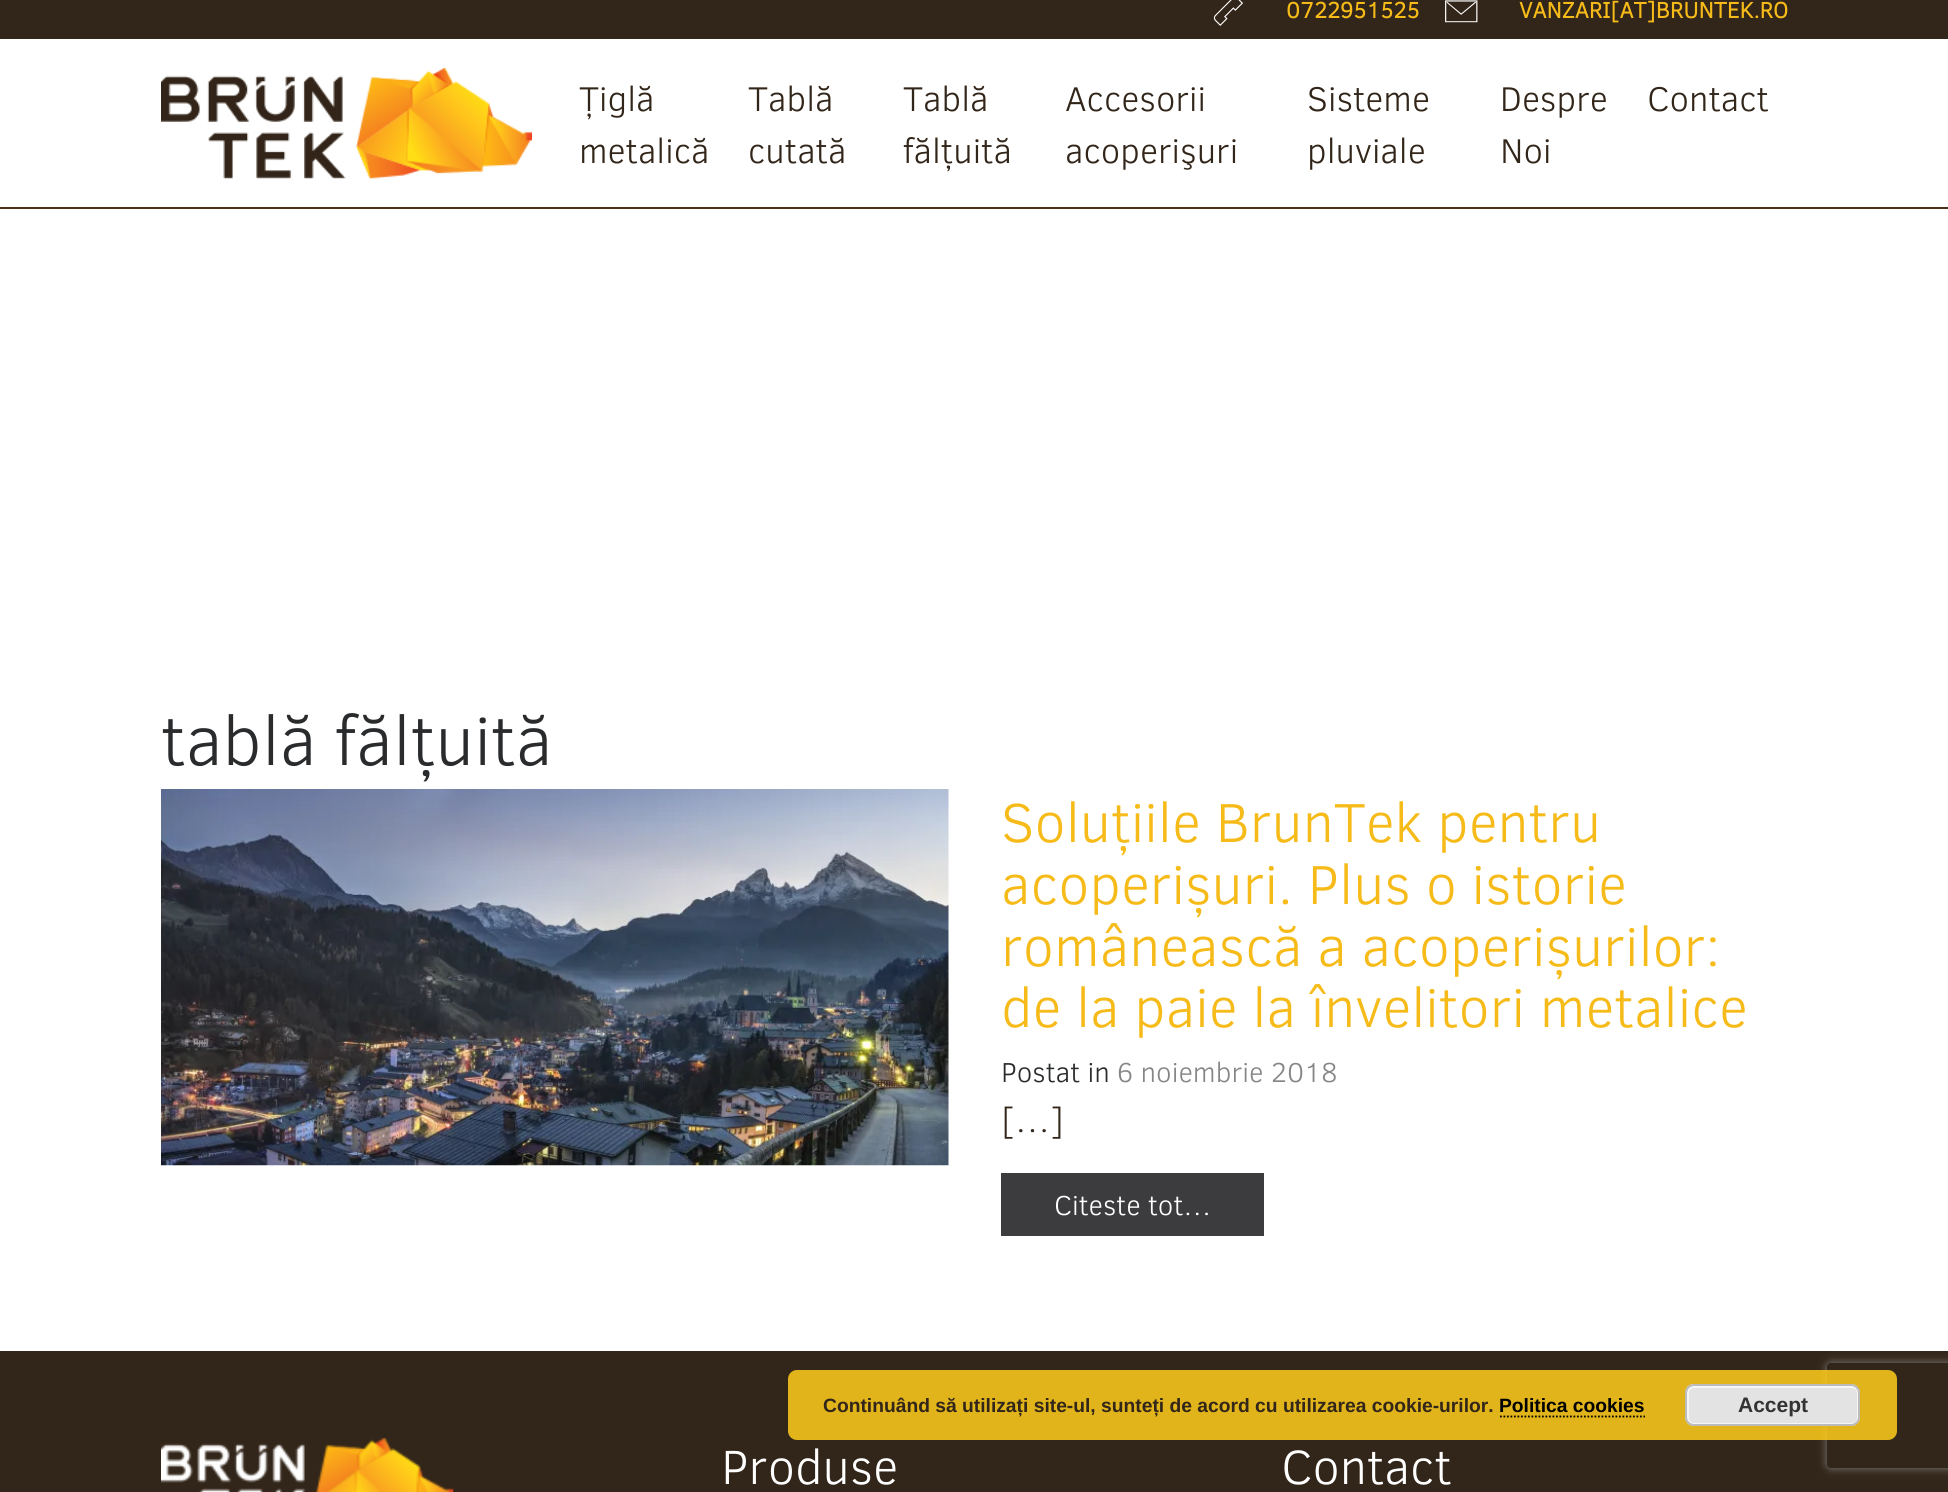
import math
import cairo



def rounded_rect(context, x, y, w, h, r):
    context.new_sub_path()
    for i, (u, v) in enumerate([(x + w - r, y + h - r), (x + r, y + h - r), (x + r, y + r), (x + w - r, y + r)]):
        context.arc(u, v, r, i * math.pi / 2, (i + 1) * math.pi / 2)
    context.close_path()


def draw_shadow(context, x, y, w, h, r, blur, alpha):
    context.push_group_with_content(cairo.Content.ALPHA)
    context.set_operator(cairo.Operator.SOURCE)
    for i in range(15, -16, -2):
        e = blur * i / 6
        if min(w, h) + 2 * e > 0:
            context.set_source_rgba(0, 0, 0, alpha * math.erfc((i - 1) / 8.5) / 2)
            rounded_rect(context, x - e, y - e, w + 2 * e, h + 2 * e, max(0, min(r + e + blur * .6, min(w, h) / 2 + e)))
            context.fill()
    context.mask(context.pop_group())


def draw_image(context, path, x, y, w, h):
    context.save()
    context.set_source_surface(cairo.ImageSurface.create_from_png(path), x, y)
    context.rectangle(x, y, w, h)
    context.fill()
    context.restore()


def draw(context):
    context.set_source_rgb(1, 1, 1)
    context.paint()
    context.set_source_rgb(50 / 255, 37 / 255, 25 / 255)
    context.rectangle(0, 0, 1948, 39)
    context.fill()
    draw_image(context, "images/1.png", 1213, 0, 30, 26)
    draw_image(context, "images/2.png", 1445, 0, 33, 23)
    context.set_source_rgb(76 / 255, 48 / 255, 23 / 255)
    context.rectangle(0, 207, 1948, 2)
    context.fill()
    draw_image(context, "images/3.png", 161, 68, 371, 111)
    draw_image(context, "images/4.png", 161, 789, 788, 377)
    context.set_source_rgb(60 / 255, 60 / 255, 62 / 255)
    context.rectangle(1001, 1173, 263, 63)
    context.fill()
    context.set_source_rgb(50 / 255, 37 / 255, 25 / 255)
    context.rectangle(0, 1351, 1948, 141)
    context.fill()
    draw_image(context, "images/5.png", 161, 1438, 293, 54)
    context.save()
    context.set_fill_rule(cairo.FillRule.EVEN_ODD)
    context.new_path()
    context.move_to(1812, 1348)
    context.line_to(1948, 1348)
    context.line_to(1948, 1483)
    context.line_to(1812, 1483)
    context.close_path()
    context.move_to(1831, 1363)
    context.line_to(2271, 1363)
    context.curve_to(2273, 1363, 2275, 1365, 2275, 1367)
    context.line_to(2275, 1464)
    context.curve_to(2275, 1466, 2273, 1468, 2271, 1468)
    context.line_to(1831, 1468)
    context.curve_to(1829, 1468, 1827, 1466, 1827, 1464)
    context.line_to(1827, 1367)
    context.curve_to(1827, 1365, 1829, 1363, 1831, 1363)
    context.close_path()
    context.clip()
    context.set_source_rgb(128 / 255, 128 / 255, 128 / 255)
    draw_shadow(context, 1827, 1363, 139, 105, 4, 4.5, 1)
    context.restore()
    context.set_source_rgba(1, 205 / 255, 26 / 255, 0.85)
    rounded_rect(context, 788, 1370, 1109, 70, 9)
    context.fill()
    context.new_path()
    context.move_to(1500, 1416.5)
    context.line_to(1645, 1416.5)
    context.set_source_rgb(0, 0, 0)
    context.set_line_width(1.8)
    context.set_dash([1.75, 1.75])
    context.stroke()
    context.set_source_rgb(227 / 255, 227 / 255, 227 / 255)
    rounded_rect(context, 1685, 1384, 175, 42, 9)
    context.fill()
    rounded_rect(context, 1688, 1387, 170, 37, 6)
    context.set_source_rgb(246 / 255, 246 / 255, 246 / 255)
    context.set_line_width(2)
    context.set_dash([])
    context.stroke()
    rounded_rect(context, 1686, 1385, 173, 40, 8)
    context.set_source_rgb(187 / 255, 187 / 255, 187 / 255)
    context.stroke()
    context.select_font_face("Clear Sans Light", cairo.FontSlant.NORMAL, cairo.FontWeight.BOLD)
    context.set_font_size(22.75)
    context.set_source_rgb(246 / 255, 187 / 255, 25 / 255)
    context.move_to(1286, 18)
    context.show_text("0722951525")
    context.move_to(1519, 18)
    context.show_text("VANZARI[AT]BRUNTEK.RO")
    context.select_font_face("Clear Sans Light Light")
    context.set_font_size(35)
    context.set_source_rgb(50 / 255, 37 / 255, 25 / 255)
    context.move_to(579, 111)
    context.show_text("Țiglă")
    context.move_to(579, 163)
    context.show_text("metalică")
    context.move_to(748, 111)
    context.show_text("Tablă")
    context.move_to(748, 163)
    context.show_text("cutată")
    context.move_to(903, 111)
    context.show_text("Tablă")
    context.move_to(903, 163)
    context.show_text("fălțuită")
    context.move_to(1065, 111)
    context.show_text("Accesorii")
    context.move_to(1065, 163)
    context.show_text("acoperişuri")
    context.move_to(1307, 111)
    context.show_text("Sisteme")
    context.move_to(1307, 163)
    context.show_text("pluviale")
    context.move_to(1500, 111)
    context.show_text("Despre")
    context.move_to(1500, 163)
    context.show_text("Noi")
    context.move_to(1647, 111)
    context.show_text("Contact")
    context.set_font_size(70)
    context.set_source_rgb(41 / 255, 43 / 255, 44 / 255)
    context.move_to(161, 765)
    context.show_text("tablă fălțuită")
    context.set_font_size(56)
    context.set_source_rgb(246 / 255, 187 / 255, 25 / 255)
    context.move_to(1001, 842)
    context.show_text("Soluțiile BrunTek pentru")
    context.move_to(1001, 904)
    context.show_text("acoperișuri. Plus o istorie")
    context.move_to(1001, 966)
    context.show_text("românească a acoperișurilor:")
    context.move_to(1001, 1027)
    context.show_text("de la paie la învelitori metalice")
    context.set_font_size(28)
    context.set_source_rgb(41 / 255, 43 / 255, 44 / 255)
    context.move_to(1001, 1082)
    context.show_text("Postat in")
    context.set_source_rgb(134 / 255, 134 / 255, 134 / 255)
    context.move_to(1117, 1082)
    context.show_text("6 noiembrie 2018")
    context.set_font_size(35)
    context.set_source_rgb(50 / 255, 37 / 255, 25 / 255)
    context.move_to(1001, 1132)
    context.show_text("[…]")
    context.set_font_size(28)
    context.set_source_rgb(1, 1, 1)
    context.move_to(1054, 1215)
    context.show_text("Citeste tot…")
    context.set_font_size(49)
    context.move_to(721, 1484)
    context.show_text("Produse")
    context.move_to(1281, 1484)
    context.show_text("Contact")
    context.select_font_face("Liberation Sans", cairo.FontSlant.NORMAL, cairo.FontWeight.BOLD)
    context.set_font_size(19.25)
    context.set_source_rgb(50 / 255, 37 / 255, 25 / 255)
    context.move_to(823, 1412)
    context.show_text("Continuând să utilizați site-ul, sunteți de acord cu utilizarea cookie-urilor.")
    context.set_source_rgb(0, 0, 0)
    context.move_to(1499, 1412)
    context.show_text("Politica cookies")
    context.set_font_size(21)
    context.set_source_rgb(51 / 255, 51 / 255, 51 / 255)
    context.move_to(1738, 1412)
    context.show_text("Accept")


surface = cairo.ImageSurface(cairo.Format.RGB24, 1948, 1492)
context = cairo.Context(surface)
options = cairo.FontOptions()
options.set_hint_metrics(cairo.HintMetrics.OFF)
options.set_hint_style(cairo.HintStyle.NONE)
context.set_font_options(options)
context.set_miter_limit(4)
draw(context)
surface.write_to_png("out.png")
